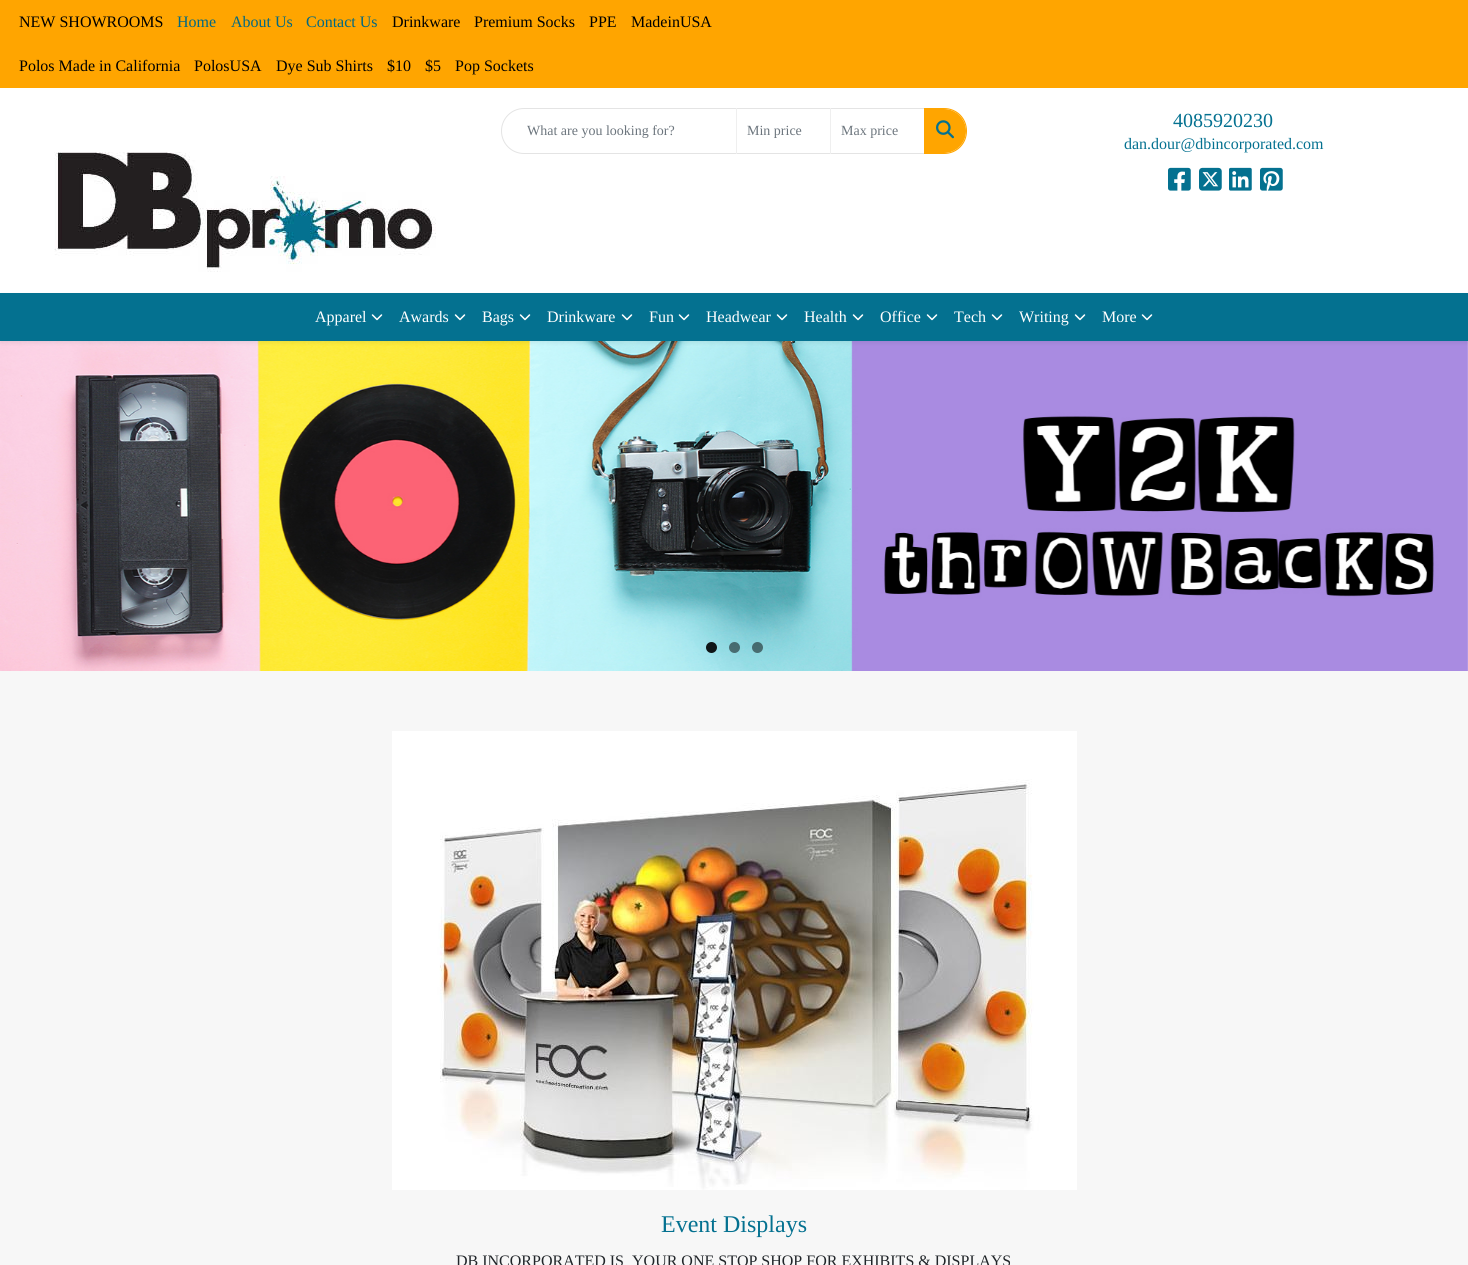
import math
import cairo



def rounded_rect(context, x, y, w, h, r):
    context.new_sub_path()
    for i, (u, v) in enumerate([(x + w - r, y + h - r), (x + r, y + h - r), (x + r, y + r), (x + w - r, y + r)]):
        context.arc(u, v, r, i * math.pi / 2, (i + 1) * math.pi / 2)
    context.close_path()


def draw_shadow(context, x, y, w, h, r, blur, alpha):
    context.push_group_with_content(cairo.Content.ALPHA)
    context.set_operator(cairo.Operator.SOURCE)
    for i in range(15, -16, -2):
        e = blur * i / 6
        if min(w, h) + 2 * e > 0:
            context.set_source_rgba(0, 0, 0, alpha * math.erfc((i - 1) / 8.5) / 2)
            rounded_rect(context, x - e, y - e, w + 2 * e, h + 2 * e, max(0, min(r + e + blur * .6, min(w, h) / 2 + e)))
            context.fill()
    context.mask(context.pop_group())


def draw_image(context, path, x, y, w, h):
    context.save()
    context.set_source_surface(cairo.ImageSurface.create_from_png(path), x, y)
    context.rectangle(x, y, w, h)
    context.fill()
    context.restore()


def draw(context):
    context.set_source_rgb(1, 1, 1)
    context.paint()
    context.set_source_rgb(1, 165 / 255, 0)
    context.rectangle(0, 0, 1468, 88)
    context.fill()
    context.new_path()
    context.move_to(524, 108.5)
    context.line_to(736.5, 108.5)
    context.line_to(736.5, 153.5)
    context.line_to(524, 153.5)
    context.curve_to(511.5, 153.5, 501.5, 143.5, 501.5, 131)
    context.curve_to(501.5, 118.5, 511.5, 108.5, 524, 108.5)
    context.close_path()
    context.set_source_rgb(228 / 255, 228 / 255, 228 / 255)
    context.set_line_width(1)
    context.stroke()
    context.rectangle(736, 108, 189, 1)
    context.fill()
    context.rectangle(736, 153, 189, 1)
    context.fill()
    context.set_source_rgb(239 / 255, 239 / 255, 239 / 255)
    context.rectangle(736, 108, 1, 46)
    context.fill()
    context.rectangle(830, 108, 1, 46)
    context.fill()
    context.set_source_rgb(1, 165 / 255, 0)
    context.new_path()
    context.move_to(924, 109)
    context.line_to(944, 109)
    context.curve_to(956, 109, 966, 119, 966, 131)
    context.curve_to(966, 143, 956, 153, 944, 153)
    context.line_to(924, 153)
    context.close_path()
    context.fill()
    context.set_fill_rule(cairo.FillRule.EVEN_ODD)
    context.new_path()
    context.move_to(924, 108)
    context.line_to(944, 108)
    context.curve_to(957, 108, 967, 118, 967, 131)
    context.curve_to(967, 144, 957, 154, 944, 154)
    context.line_to(924, 154)
    context.close_path()
    context.move_to(924, 109)
    context.line_to(944, 109)
    context.curve_to(956, 109, 966, 119, 966, 131)
    context.curve_to(966, 143, 956, 153, 944, 153)
    context.line_to(924, 153)
    context.close_path()
    context.fill()
    draw_image(context, "images/1.png", 936, 120, 18, 19)
    draw_image(context, "images/2.png", 1168, 167, 23, 24)
    draw_image(context, "images/3.png", 1199, 167, 23, 24)
    draw_image(context, "images/4.png", 1229, 167, 23, 24)
    draw_image(context, "images/5.png", 1260, 167, 23, 24)
    draw_image(context, "images/6.png", 54, 152, 382, 120)
    draw_image(context, "images/8.png", 0, 341, 1468, 330)
    context.set_source_rgb(0, 0, 0)
    draw_shadow(context, 0, 295, 1468, 48, 0, 2, 0.07)
    context.set_source_rgb(4 / 255, 113 / 255, 144 / 255)
    context.rectangle(0, 293, 1468, 48)
    context.fill()
    draw_image(context, "images/7.png", 371, 314, 12, 7)
    draw_image(context, "images/7.png", 454, 314, 12, 7)
    draw_image(context, "images/7.png", 519, 314, 12, 7)
    draw_image(context, "images/7.png", 621, 314, 12, 7)
    draw_image(context, "images/7.png", 678, 314, 12, 7)
    draw_image(context, "images/7.png", 776, 314, 12, 7)
    draw_image(context, "images/7.png", 852, 314, 12, 7)
    draw_image(context, "images/7.png", 926, 314, 12, 7)
    draw_image(context, "images/7.png", 991, 314, 12, 7)
    draw_image(context, "images/7.png", 1074, 314, 12, 7)
    draw_image(context, "images/7.png", 1141, 314, 12, 7)
    context.set_source_rgba(0, 0, 0, 0.9)
    context.arc(711.5, 647.5, 5.5, 0, 2 * math.pi)
    context.fill()
    context.set_source_rgba(0, 0, 0, 0.5)
    context.arc(734.5, 647.5, 5.5, 0, 2 * math.pi)
    context.fill()
    context.arc(757.5, 647.5, 5.5, 0, 2 * math.pi)
    context.fill()
    context.set_source_rgb(247 / 255, 247 / 255, 247 / 255)
    context.rectangle(0, 671, 1468, 594)
    context.fill()
    draw_image(context, "images/9.png", 392, 731, 685, 459)
    context.select_font_face("Liberation Serif")
    context.set_font_size(16)
    context.set_source_rgb(0, 0, 0)
    context.move_to(19, 27)
    context.show_text("NEW SHOWROOMS")
    context.set_source_rgb(0, 105 / 255, 131 / 255)
    context.move_to(177, 27)
    context.show_text("Home")
    context.move_to(231, 27)
    context.show_text("About Us")
    context.move_to(306, 27)
    context.show_text("Contact Us")
    context.set_source_rgb(0, 0, 0)
    context.move_to(392, 27)
    context.show_text("Drinkware")
    context.move_to(474, 27)
    context.show_text("Premium Socks")
    context.move_to(589, 27)
    context.show_text("PPE")
    context.move_to(631, 27)
    context.show_text("MadeinUSA")
    context.move_to(19, 71)
    context.show_text("Polos Made in California")
    context.move_to(194, 71)
    context.show_text("PolosUSA")
    context.move_to(276, 71)
    context.show_text("Dye Sub Shirts")
    context.move_to(387, 71)
    context.show_text("$10")
    context.move_to(425, 71)
    context.show_text("$5")
    context.move_to(455, 71)
    context.show_text("Pop Sockets")
    context.set_font_size(14)
    context.set_source_rgb(108 / 255, 117 / 255, 125 / 255)
    context.move_to(527, 135)
    context.show_text("What are you looking for?")
    context.move_to(747, 135)
    context.show_text("Min price")
    context.move_to(841, 135)
    context.show_text("Max price")
    context.set_font_size(20)
    context.set_source_rgb(4 / 255, 113 / 255, 144 / 255)
    context.move_to(1173, 127)
    context.show_text("4085920230")
    context.set_font_size(16)
    context.move_to(1124, 149)
    context.show_text("dan.dour@dbincorporated.com")
    context.set_source_rgb(1, 1, 1)
    context.move_to(315, 322)
    context.show_text("Apparel")
    context.move_to(399, 322)
    context.show_text("Awards")
    context.move_to(482, 322)
    context.show_text("Bags")
    context.move_to(547, 322)
    context.show_text("Drinkware")
    context.move_to(649, 322)
    context.show_text("Fun")
    context.move_to(706, 322)
    context.show_text("Headwear")
    context.move_to(804, 322)
    context.show_text("Health")
    context.move_to(880, 322)
    context.show_text("Office")
    context.move_to(954, 322)
    context.show_text("Tech")
    context.move_to(1019, 322)
    context.show_text("Writing")
    context.move_to(1102, 322)
    context.show_text("More")
    context.set_font_size(24)
    context.set_source_rgb(4 / 255, 113 / 255, 144 / 255)
    context.move_to(661, 1232)
    context.show_text("Event Displays")
    context.set_font_size(16)
    context.set_source_rgb(33 / 255, 37 / 255, 41 / 255)
    context.move_to(456, 1266)
    context.show_text("DB INCORPORATED IS  YOUR ONE STOP SHOP FOR EXHIBITS & DISPLAYS")


surface = cairo.ImageSurface(cairo.Format.RGB24, 1468, 1265)
context = cairo.Context(surface)
options = cairo.FontOptions()
options.set_hint_metrics(cairo.HintMetrics.OFF)
options.set_hint_style(cairo.HintStyle.NONE)
context.set_font_options(options)
context.set_miter_limit(4)
draw(context)
surface.write_to_png("out.png")
